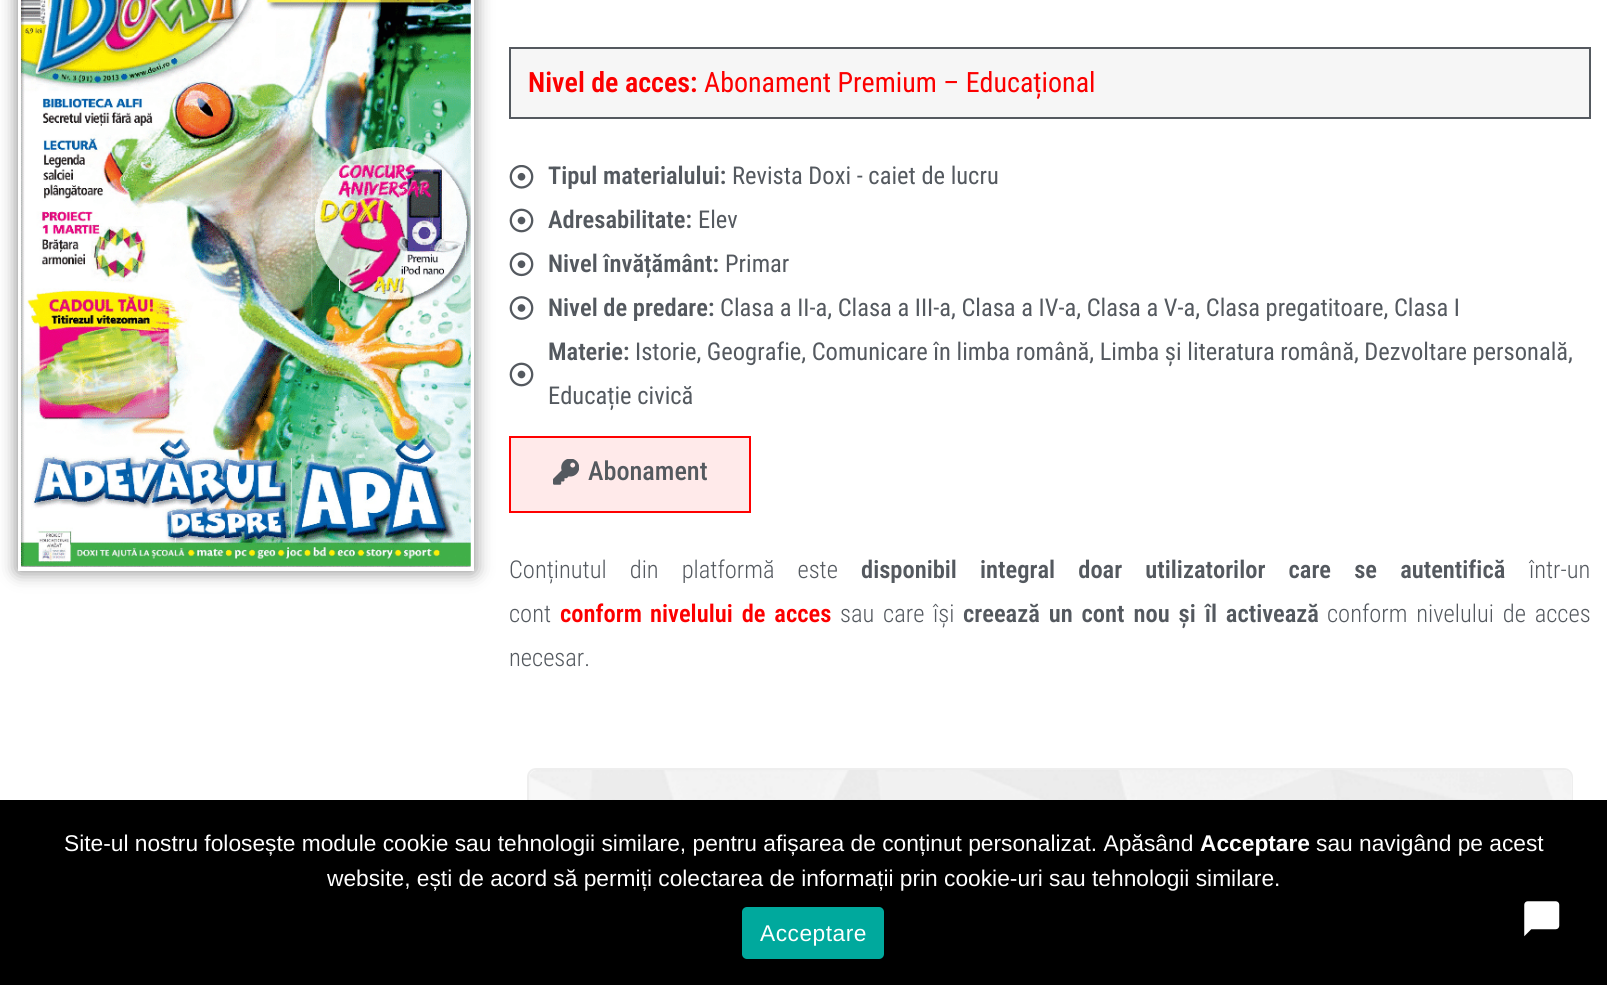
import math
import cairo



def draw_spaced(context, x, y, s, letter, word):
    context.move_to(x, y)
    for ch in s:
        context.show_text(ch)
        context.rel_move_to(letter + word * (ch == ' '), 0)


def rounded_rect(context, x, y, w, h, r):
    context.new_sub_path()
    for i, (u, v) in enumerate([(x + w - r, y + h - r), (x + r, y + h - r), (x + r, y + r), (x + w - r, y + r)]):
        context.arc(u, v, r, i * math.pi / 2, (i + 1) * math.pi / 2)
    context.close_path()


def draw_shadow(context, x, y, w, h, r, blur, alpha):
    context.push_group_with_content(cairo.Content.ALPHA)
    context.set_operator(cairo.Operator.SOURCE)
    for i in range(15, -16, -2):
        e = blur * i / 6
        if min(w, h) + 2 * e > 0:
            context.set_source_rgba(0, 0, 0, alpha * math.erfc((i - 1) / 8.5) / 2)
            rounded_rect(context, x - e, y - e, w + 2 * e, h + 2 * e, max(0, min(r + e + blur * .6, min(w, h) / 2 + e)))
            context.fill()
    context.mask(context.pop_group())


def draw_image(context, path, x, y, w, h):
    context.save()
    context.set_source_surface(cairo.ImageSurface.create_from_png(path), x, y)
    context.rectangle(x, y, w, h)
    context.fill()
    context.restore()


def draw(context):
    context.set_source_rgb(1, 1, 1)
    context.paint()
    context.set_source_rgb(0, 0, 0)
    draw_shadow(context, 18, -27, 456, 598, 0, 9, 0.5)
    context.rectangle(20, -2, 452, 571)
    context.set_source_rgb(1, 1, 1)
    context.set_line_width(4)
    context.stroke()
    draw_image(context, "images/1.png", 21, 0, 450, 567)
    context.set_source_rgb(246 / 255, 246 / 255, 246 / 255)
    context.rectangle(510, 48, 1080, 70)
    context.fill_preserve()
    context.set_source_rgb(84 / 255, 89 / 255, 95 / 255)
    context.set_line_width(2)
    context.stroke()
    draw_image(context, "images/2.png", 509, 165, 25, 24)
    draw_image(context, "images/3.png", 509, 208, 25, 25)
    draw_image(context, "images/4.png", 509, 252, 25, 25)
    draw_image(context, "images/5.png", 509, 296, 25, 24)
    draw_image(context, "images/3.png", 509, 362, 25, 25)
    context.set_source_rgb(1, 234 / 255, 234 / 255)
    context.rectangle(510, 437, 240, 75)
    context.fill_preserve()
    context.set_source_rgb(1, 0, 0)
    context.stroke()
    draw_image(context, "images/6.png", 553, 459, 26, 26)
    rounded_rect(context, 528, 769, 1044, 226, 8)
    context.set_source_rgb(238 / 255, 238 / 255, 238 / 255)
    context.stroke()
    context.set_source_rgb(245 / 255, 245 / 255, 245 / 255)
    context.new_path()
    context.move_to(538, 770)
    context.line_to(1563, 770)
    context.curve_to(1568, 770, 1572, 774, 1572, 779)
    context.line_to(1572, 851)
    context.line_to(529, 851)
    context.line_to(529, 779)
    context.curve_to(529, 774, 533, 770, 538, 770)
    context.close_path()
    context.fill()
    draw_image(context, "images/7.png", 529, 770, 1042, 30)
    context.set_source_rgb(0, 0, 0)
    context.rectangle(0, 800, 1607, 185)
    context.fill()
    context.set_source_rgb(0, 169 / 255, 157 / 255)
    rounded_rect(context, 742, 907, 142, 52, 5)
    context.fill()
    draw_image(context, "images/8.png", 1524, 901, 36, 36)
    context.select_font_face("Roboto Condensed SemiBold")
    context.set_font_size(28)
    context.set_source_rgb(252 / 255, 0, 0)
    context.move_to(528, 92)
    context.show_text("Nivel de acces:")
    context.select_font_face("Roboto Condensed")
    context.move_to(704, 92)
    context.show_text("Abonament Premium – Educațional")
    context.select_font_face("Roboto Condensed SemiBold")
    context.set_font_size(24.5)
    context.set_source_rgb(84 / 255, 89 / 255, 95 / 255)
    context.move_to(548, 184)
    context.show_text("Tipul materialului:")
    context.select_font_face("Roboto Condensed")
    context.move_to(732, 184)
    context.show_text("Revista Doxi - caiet de lucru")
    context.select_font_face("Roboto Condensed SemiBold")
    context.move_to(548, 228)
    context.show_text("Adresabilitate:")
    context.select_font_face("Roboto Condensed")
    context.move_to(698, 228)
    context.show_text("Elev")
    context.select_font_face("Roboto Condensed SemiBold")
    context.move_to(548, 272)
    context.show_text("Nivel învățământ:")
    context.select_font_face("Roboto Condensed")
    context.move_to(725, 272)
    context.show_text("Primar")
    context.select_font_face("Roboto Condensed SemiBold")
    context.move_to(548, 316)
    context.show_text("Nivel de predare:")
    context.select_font_face("Roboto Condensed")
    context.move_to(720, 316)
    context.show_text("Clasa a II-a, Clasa a III-a, Clasa a IV-a, Clasa a V-a, Clasa pregatitoare, Clasa I")
    context.select_font_face("Roboto Condensed SemiBold")
    context.move_to(548, 360)
    context.show_text("Materie:")
    context.select_font_face("Roboto Condensed")
    context.move_to(635, 360)
    context.show_text("Istorie, Geografie, Comunicare în limba română, Limba și literatura română, Dezvoltare personală,")
    context.move_to(548, 404)
    context.show_text("Educație civică")
    context.select_font_face("Roboto Condensed Medium")
    context.set_font_size(26.25)
    context.move_to(588, 480)
    context.show_text("Abonament")
    context.select_font_face("Roboto Condensed Light")
    context.set_font_size(24.5)
    draw_spaced(context, 509, 578, "Conținutul din platformă este", 0, 17.5)
    context.select_font_face("Roboto Condensed SemiBold")
    draw_spaced(context, 861, 578, "disponibil integral doar utilizatorilor care se autentifică", 0, 17.5)
    context.select_font_face("Roboto Condensed Light")
    context.move_to(1529, 578)
    context.show_text("într-un")
    context.move_to(509, 622)
    context.show_text("cont")
    context.select_font_face("Roboto Condensed SemiBold")
    context.set_source_rgb(252 / 255, 0, 0)
    context.move_to(560, 622)
    context.show_text("conform")
    draw_spaced(context, 650, 622, "nivelului de acces", 0, 3.25)
    context.select_font_face("Roboto Condensed Light")
    context.set_source_rgb(84 / 255, 89 / 255, 95 / 255)
    draw_spaced(context, 840, 622, "sau care își", 0, 3.25)
    context.select_font_face("Roboto Condensed SemiBold")
    draw_spaced(context, 963, 622, "creează un cont nou și îl activează", 0, 3.25)
    context.select_font_face("Roboto Condensed Light")
    draw_spaced(context, 1327, 622, "conform nivelului de acces", 0, 3.25)
    context.move_to(509, 666)
    context.show_text("necesar.")
    context.select_font_face("Liberation Sans")
    context.set_font_size(22.75)
    context.set_source_rgb(1, 1, 1)
    context.move_to(64, 851)
    context.show_text("Site-ul nostru folosește module cookie sau tehnologii similare, pentru afișarea de conținut personalizat. Apăsând")
    context.select_font_face("Liberation Sans", cairo.FontSlant.NORMAL, cairo.FontWeight.BOLD)
    context.move_to(1200, 851)
    context.show_text("Acceptare")
    context.select_font_face("Liberation Sans")
    context.move_to(1316, 851)
    context.show_text("sau navigând pe acest")
    context.move_to(327, 886)
    context.show_text("website, ești de acord să permiți colectarea de informații prin cookie-uri sau tehnologii similare.")
    draw_spaced(context, 760, 941, "Acceptare", 0.5, 0)


surface = cairo.ImageSurface(cairo.Format.RGB24, 1607, 985)
context = cairo.Context(surface)
options = cairo.FontOptions()
options.set_hint_metrics(cairo.HintMetrics.OFF)
options.set_hint_style(cairo.HintStyle.NONE)
context.set_font_options(options)
context.set_miter_limit(4)
draw(context)
surface.write_to_png("out.png")
